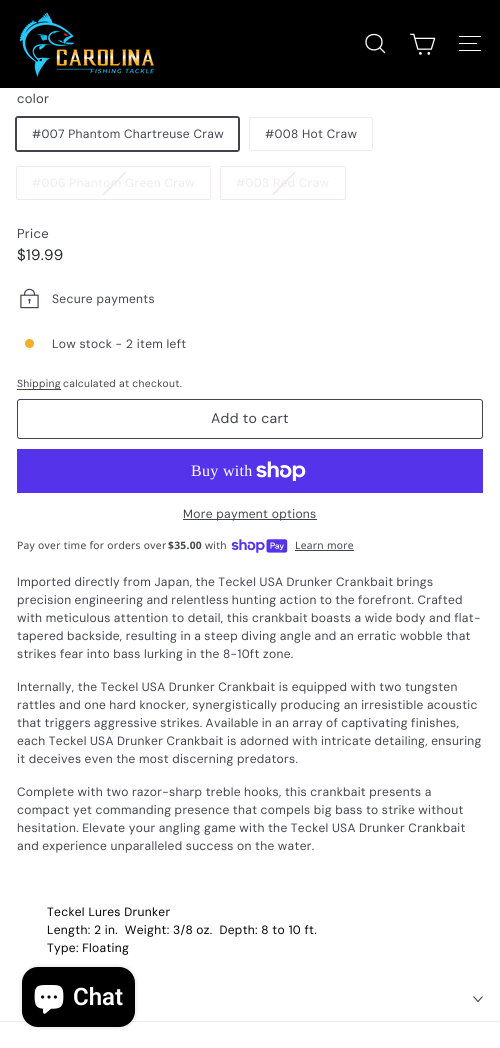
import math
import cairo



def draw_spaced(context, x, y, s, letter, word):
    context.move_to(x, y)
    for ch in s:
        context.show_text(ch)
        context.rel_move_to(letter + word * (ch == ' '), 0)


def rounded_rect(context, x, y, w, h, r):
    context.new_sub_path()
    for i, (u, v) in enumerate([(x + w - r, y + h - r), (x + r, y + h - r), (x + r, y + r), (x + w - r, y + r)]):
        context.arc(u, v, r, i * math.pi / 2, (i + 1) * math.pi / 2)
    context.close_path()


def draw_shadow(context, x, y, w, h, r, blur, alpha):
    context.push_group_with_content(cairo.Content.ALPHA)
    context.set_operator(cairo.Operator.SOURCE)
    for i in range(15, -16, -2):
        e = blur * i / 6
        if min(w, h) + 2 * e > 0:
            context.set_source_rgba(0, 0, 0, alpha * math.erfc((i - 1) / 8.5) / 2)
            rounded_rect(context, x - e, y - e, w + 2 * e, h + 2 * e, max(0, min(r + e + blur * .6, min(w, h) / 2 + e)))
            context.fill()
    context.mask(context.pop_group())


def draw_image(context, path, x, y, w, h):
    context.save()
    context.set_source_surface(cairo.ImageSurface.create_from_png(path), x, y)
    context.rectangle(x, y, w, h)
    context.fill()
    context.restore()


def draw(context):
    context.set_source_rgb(1, 1, 1)
    context.paint()
    context.set_source_rgb(0, 0, 0)
    context.rectangle(0, 0, 500, 88)
    context.fill()
    draw_image(context, "images/1.png", 19, 12, 136, 65)
    context.new_path()
    context.move_to(382, 42)
    context.curve_to(382, 52.5, 366, 52.5, 366, 42)
    context.curve_to(366, 32, 382, 32, 382, 42)
    context.move_to(385, 53)
    context.line_to(379.5, 47.5)
    context.set_source_rgb(1, 1, 1)
    context.set_line_width(1.3)
    context.set_line_join(cairo.LineJoin.ROUND)
    context.stroke()
    draw_image(context, "images/2.png", 410, 33, 26, 22)
    context.rectangle(459, 36, 22, 1)
    context.fill()
    context.rectangle(459, 43, 18, 1)
    context.fill()
    context.rectangle(459, 50, 22, 1)
    context.fill()
    rounded_rect(context, 16, 117, 223, 34, 2)
    context.set_source_rgb(66 / 255, 67 / 255, 77 / 255)
    context.set_line_width(2)
    context.set_line_join(cairo.LineJoin.MITER)
    context.stroke()
    context.set_source_rgb(1, 1, 1)
    rounded_rect(context, 17, 118, 221, 32, 1)
    context.fill()
    rounded_rect(context, 249.5, 117.5, 123, 33, 1.5)
    context.set_source_rgb(239 / 255, 235 / 255, 235 / 255)
    context.set_line_width(1)
    context.stroke()
    context.set_source_rgb(1, 1, 1)
    rounded_rect(context, 250, 118, 122, 32, 1)
    context.fill()
    rounded_rect(context, 16.5, 166.5, 194, 33, 1.5)
    context.set_source_rgb(239 / 255, 235 / 255, 235 / 255)
    context.stroke()
    context.set_source_rgb(1, 1, 1)
    rounded_rect(context, 17, 167, 193, 32, 1)
    context.fill()
    context.set_source_rgb(239 / 255, 235 / 255, 235 / 255)
    context.new_path()
    context.move_to(125, 171.5)
    context.line_to(126.5, 172.5)
    context.line_to(104, 195.5)
    context.line_to(102.5, 194)
    context.close_path()
    context.fill()
    rounded_rect(context, 220.5, 166.5, 125, 33, 1.5)
    context.stroke()
    context.set_source_rgb(1, 1, 1)
    rounded_rect(context, 221, 167, 124, 32, 1)
    context.fill()
    context.set_source_rgb(239 / 255, 235 / 255, 235 / 255)
    context.new_path()
    context.move_to(294.5, 171.5)
    context.line_to(296, 172.5)
    context.line_to(273.5, 195.5)
    context.line_to(272, 194)
    context.close_path()
    context.fill()
    draw_image(context, "images/3.png", 20, 288, 19, 21)
    context.set_source_rgb(244 / 255, 175 / 255, 41 / 255)
    context.arc(29.5, 343.5, 4.5, 0, 2 * math.pi)
    context.fill()
    context.set_source_rgb(66 / 255, 67 / 255, 77 / 255)
    context.rectangle(17, 389, 44, 1)
    context.fill()
    rounded_rect(context, 17.5, 399.5, 465, 39, 2.5)
    context.stroke()
    context.set_source_rgb(84 / 255, 51 / 255, 235 / 255)
    context.rectangle(17, 449, 466, 44)
    context.fill()
    draw_image(context, "images/4.png", 256, 461, 50, 20)
    context.set_source_rgb(66 / 255, 67 / 255, 77 / 255)
    context.rectangle(183, 519, 134, 1)
    context.fill()
    draw_image(context, "images/5.png", 231, 539, 57, 14)
    context.rectangle(295, 550, 59, 1)
    context.fill()
    context.set_source_rgb(239 / 255, 235 / 255, 235 / 255)
    context.rectangle(0, 1021, 500, 1)
    context.fill()
    context.new_path()
    context.move_to(473.5, 996.5)
    context.line_to(478, 1001.5)
    context.line_to(482.5, 996.5)
    context.set_source_rgb(66 / 255, 67 / 255, 77 / 255)
    context.set_line_width(1.1)
    context.set_line_join(cairo.LineJoin.ROUND)
    context.stroke()
    context.set_source_rgb(0, 0, 0)
    draw_shadow(context, 22, 967, 113, 60, 16, 2.5, 0.15)
    context.set_source_rgb(0, 0, 0)
    rounded_rect(context, 22, 967, 113, 60, 16)
    context.fill()
    draw_image(context, "images/6.png", 34, 985, 30, 29)
    context.select_font_face("DM Sans")
    context.set_font_size(13)
    context.set_source_rgb(66 / 255, 67 / 255, 77 / 255)
    draw_spaced(context, 17, 103, "color", 0.3, 0)
    context.select_font_face("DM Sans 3")
    context.set_font_size(12)
    draw_spaced(context, 32, 138, "#007 Phantom Chartreuse Craw", 0.3, 0)
    draw_spaced(context, 265, 138, "#008 Hot Craw", 0.3, 0)
    context.set_source_rgb(239 / 255, 235 / 255, 235 / 255)
    draw_spaced(context, 32, 187, "#006 Phantom Green Craw", 0.3, 0)
    draw_spaced(context, 236, 187, "#003 Red Craw", 0.3, 0)
    context.select_font_face("DM Sans")
    context.set_font_size(13)
    context.set_source_rgb(66 / 255, 67 / 255, 77 / 255)
    draw_spaced(context, 17, 238, "Price", 0.3, 0)
    context.select_font_face("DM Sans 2")
    context.set_font_size(15)
    context.set_source_rgb(39 / 255, 40 / 255, 49 / 255)
    draw_spaced(context, 17, 260, "$19.99", 0.3, 0)
    context.select_font_face("DM Sans 3")
    context.set_font_size(12)
    context.set_source_rgb(66 / 255, 67 / 255, 77 / 255)
    draw_spaced(context, 52, 303, "Secure payments", 0.3, 0)
    draw_spaced(context, 52, 348, "Low stock - 2 item left", 0.3, 0)
    context.set_font_size(10.25)
    draw_spaced(context, 17, 387, "Shipping", 0.3, 0)
    draw_spaced(context, 63, 387, "calculated at checkout.", 0.3, -0.1)
    context.select_font_face("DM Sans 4")
    context.set_font_size(14)
    draw_spaced(context, 211, 423, "Add to cart", 0.3, 0)
    context.select_font_face("Liberation Serif")
    context.set_font_size(16)
    context.set_source_rgb(1, 1, 1)
    draw_spaced(context, 191, 476, "Buy with", 0.3, 0)
    context.select_font_face("DM Sans 3")
    context.set_font_size(12)
    context.set_source_rgb(66 / 255, 67 / 255, 77 / 255)
    draw_spaced(context, 183, 518, "More payment options", 0.3, 0)
    context.select_font_face("Noto Sans")
    context.set_font_size(10.25)
    draw_spaced(context, 17, 549, "Pay over time for orders over", 0.3, 0)
    context.select_font_face("Noto Sans", cairo.FontSlant.NORMAL, cairo.FontWeight.BOLD)
    draw_spaced(context, 168, 549, "$35.00", 0.3, 0)
    context.select_font_face("Noto Sans")
    draw_spaced(context, 205, 549, "with", 0.3, 0)
    draw_spaced(context, 295, 549, "Learn more", 0.3, 0)
    context.select_font_face("DM Sans 3")
    context.set_font_size(12)
    draw_spaced(context, 17, 586, "Imported directly from Japan, the Teckel USA Drunker Crankbait brings", 0.3, -0.25)
    draw_spaced(context, 17, 604, "precision engineering and relentless hunting action to the forefront. Crafted", 0.3, -0.5)
    draw_spaced(context, 17, 622, "with meticulous attention to detail, this crankbait boasts a wide body and flat-", 0.3, -0.25)
    draw_spaced(context, 17, 640, "tapered backside, resulting in a steep diving angle and an erratic wobble that", 0.3, -0.25)
    draw_spaced(context, 17, 658, "strikes fear into bass lurking in the 8-10ft zone.", 0.3, -0.25)
    draw_spaced(context, 17, 691, "Internally, the Teckel USA Drunker Crankbait is equipped with two tungsten", 0.3, -0.25)
    draw_spaced(context, 17, 709, "rattles and one hard knocker, synergistically producing an irresistible acoustic", 0.3, -0.25)
    draw_spaced(context, 17, 727, "that triggers aggressive strikes. Available in an array of captivating finishes,", 0.3, -0.5)
    draw_spaced(context, 17, 745, "each Teckel USA Drunker Crankbait is adorned with intricate detailing, ensuring", 0.3, -0.25)
    draw_spaced(context, 17, 763, "it deceives even the most discerning predators.", 0.3, -0.25)
    draw_spaced(context, 17, 796, "Complete with two razor-sharp treble hooks, this crankbait presents a", 0.3, -0.25)
    draw_spaced(context, 17, 814, "compact yet commanding presence that compels big bass to strike without", 0.3, -0.25)
    draw_spaced(context, 17, 832, "hesitation. Elevate your angling game with the Teckel USA Drunker Crankbait", 0.3, -0.25)
    draw_spaced(context, 17, 850, "and experience unparalleled success on the water.", 0.3, -0.25)
    context.set_source_rgb(0, 0, 0)
    draw_spaced(context, 47, 916, "Teckel Lures Drunker", 0.3, 0)
    draw_spaced(context, 47, 934, "Length: 2 in.  Weight: 3/8 oz.  Depth: 8 to 10 ft.", 0.3, -0.1)
    draw_spaced(context, 47, 952, "Type: Floating", 0.3, 0)
    context.select_font_face("Roboto SemiBold")
    context.set_font_size(24)
    context.set_source_rgb(1, 1, 1)
    context.move_to(73, 1005)
    context.show_text("Chat")


surface = cairo.ImageSurface(cairo.Format.RGB24, 500, 1048)
context = cairo.Context(surface)
options = cairo.FontOptions()
options.set_hint_metrics(cairo.HintMetrics.OFF)
options.set_hint_style(cairo.HintStyle.NONE)
context.set_font_options(options)
context.set_miter_limit(4)
draw(context)
surface.write_to_png("out.png")
